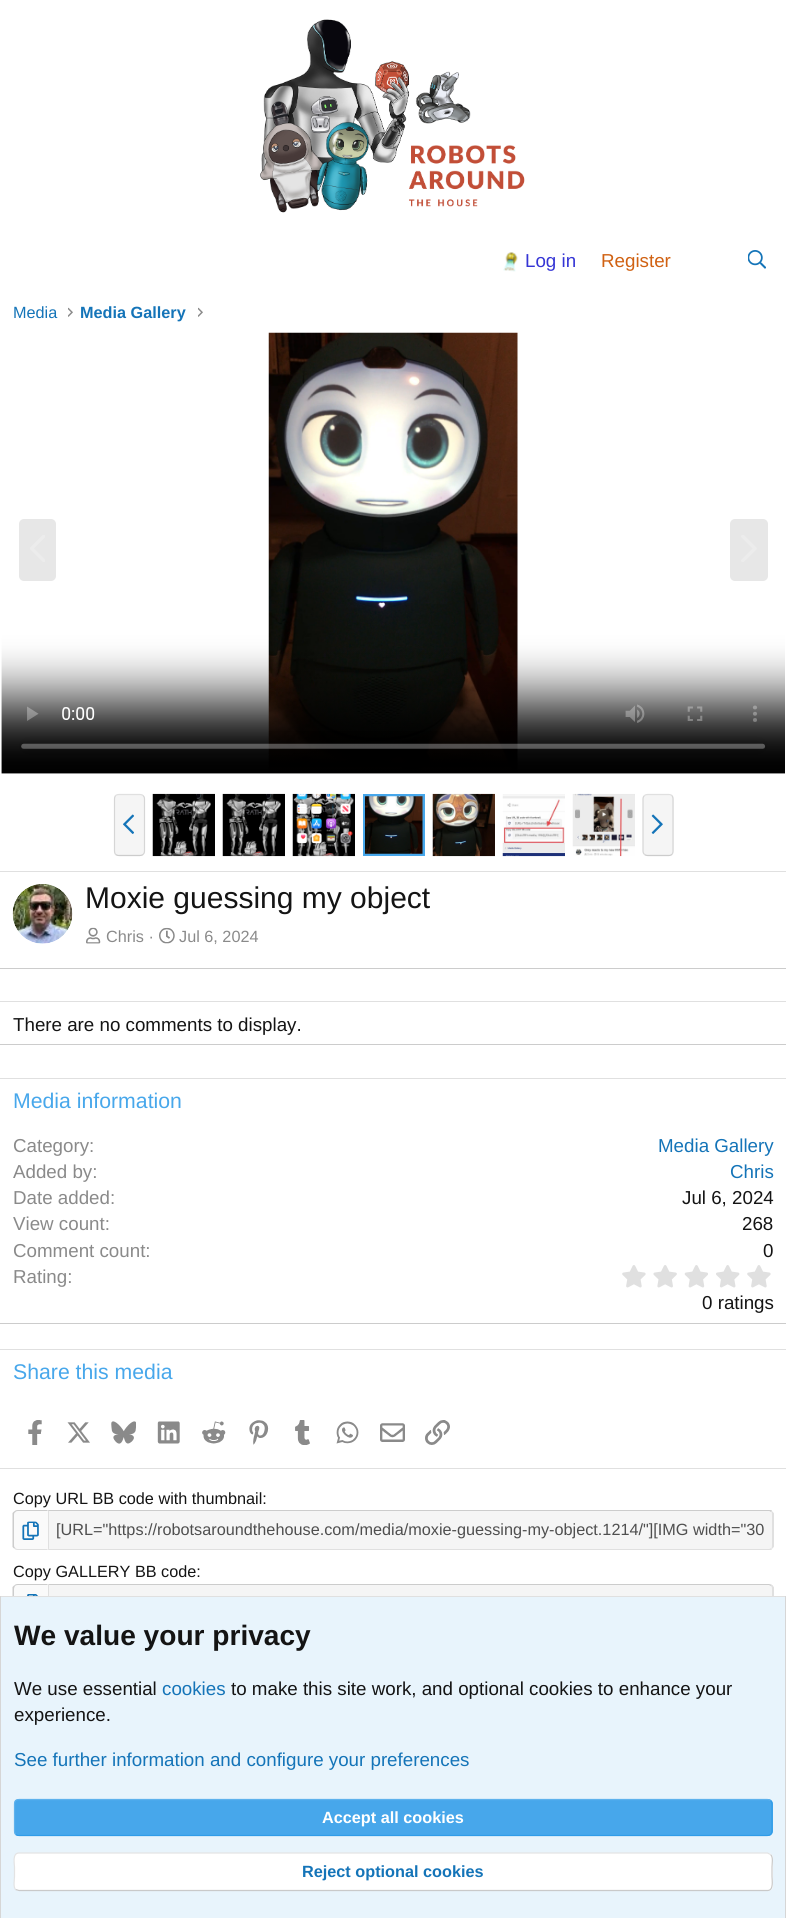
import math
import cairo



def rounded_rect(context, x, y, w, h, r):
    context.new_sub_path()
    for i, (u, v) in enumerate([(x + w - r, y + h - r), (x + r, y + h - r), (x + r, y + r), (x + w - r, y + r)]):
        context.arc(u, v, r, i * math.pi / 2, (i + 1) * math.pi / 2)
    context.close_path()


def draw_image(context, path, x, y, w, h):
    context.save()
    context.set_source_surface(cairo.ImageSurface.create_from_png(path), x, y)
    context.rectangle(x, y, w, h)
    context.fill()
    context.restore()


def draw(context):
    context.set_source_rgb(1, 1, 1)
    context.paint()
    draw_image(context, "images/1.png", 260, 19, 265, 194)
    draw_image(context, "images/2.png", 503, 252, 15, 20)
    draw_image(context, "images/3.png", 748, 250, 18, 19)
    draw_image(context, "images/4.png", 68, 307, 5, 10)
    draw_image(context, "images/4.png", 198, 307, 5, 10)
    draw_image(context, "images/5.png", 1, 332, 784, 442)
    context.set_source_rgb(231 / 255, 231 / 255, 231 / 255)
    rounded_rect(context, 19, 519, 37, 62, 5)
    context.fill()
    draw_image(context, "images/6.png", 30, 535, 15, 27)
    rounded_rect(context, 730, 519, 38, 62, 5)
    context.fill()
    draw_image(context, "images/7.png", 741, 535, 16, 27)
    context.set_source_rgb(245 / 255, 245 / 255, 245 / 255)
    rounded_rect(context, 114, 794, 31, 62, 5)
    context.fill()
    context.new_path()
    context.move_to(115.5, 795.5)
    context.curve_to(116.5, 795, 117.5, 794.5, 119, 794.5)
    context.line_to(140, 794.5)
    context.curve_to(141, 794.5, 142.5, 795, 143, 795.5)
    context.set_source_rgb(224 / 255, 224 / 255, 224 / 255)
    context.set_line_width(1.2)
    context.stroke()
    context.new_path()
    context.move_to(143, 795.5)
    context.curve_to(144, 796.5, 144.5, 797.5, 144.5, 799)
    context.line_to(144.5, 851)
    context.curve_to(144.5, 852.5, 144, 853.5, 143, 854.5)
    context.set_source_rgb(214 / 255, 214 / 255, 214 / 255)
    context.stroke()
    context.new_path()
    context.move_to(143, 854.5)
    context.curve_to(142.5, 855, 141, 855.5, 140, 855.5)
    context.line_to(119, 855.5)
    context.curve_to(117.5, 855.5, 116.5, 855, 115.5, 854.5)
    context.set_source_rgb(204 / 255, 204 / 255, 204 / 255)
    context.stroke()
    context.new_path()
    context.move_to(115.5, 854.5)
    context.curve_to(115, 853.5, 114.5, 852.5, 114.5, 851)
    context.line_to(114.5, 799)
    context.curve_to(114.5, 797.5, 115, 796.5, 115.5, 795.5)
    context.set_source_rgb(214 / 255, 214 / 255, 214 / 255)
    context.stroke()
    draw_image(context, "images/8.png", 123, 814, 11, 20)
    draw_image(context, "images/9.png", 152, 793, 63, 64)
    draw_image(context, "images/10.png", 222, 793, 63, 64)
    draw_image(context, "images/11.png", 292, 793, 63, 64)
    context.rectangle(364.5, 795.5, 59, 59)
    context.set_source_rgb(71 / 255, 167 / 255, 235 / 255)
    context.set_line_width(3)
    context.stroke()
    draw_image(context, "images/12.png", 365, 796, 58, 58)
    draw_image(context, "images/13.png", 432, 793, 63, 64)
    draw_image(context, "images/14.png", 502, 794, 63, 63)
    draw_image(context, "images/15.png", 572, 793, 63, 64)
    context.set_source_rgb(245 / 255, 245 / 255, 245 / 255)
    rounded_rect(context, 643, 794, 31, 62, 5)
    context.fill()
    context.new_path()
    context.move_to(644.5, 795.5)
    context.curve_to(645, 795, 646.5, 794.5, 647.5, 794.5)
    context.line_to(669, 794.5)
    context.curve_to(670, 794.5, 671, 795, 672, 795.5)
    context.set_source_rgb(224 / 255, 224 / 255, 224 / 255)
    context.set_line_width(1.2)
    context.stroke()
    context.new_path()
    context.move_to(672, 795.5)
    context.curve_to(672.5, 796.5, 673, 797.5, 673, 799)
    context.line_to(673, 851)
    context.curve_to(673, 852.5, 672.5, 853.5, 672, 854.5)
    context.set_source_rgb(214 / 255, 214 / 255, 214 / 255)
    context.stroke()
    context.new_path()
    context.move_to(672, 854.5)
    context.curve_to(671, 855, 670, 855.5, 669, 855.5)
    context.line_to(647.5, 855.5)
    context.curve_to(646.5, 855.5, 645, 855, 644.5, 854.5)
    context.set_source_rgb(204 / 255, 204 / 255, 204 / 255)
    context.stroke()
    context.new_path()
    context.move_to(644.5, 854.5)
    context.curve_to(643.5, 853.5, 643, 852.5, 643, 851)
    context.line_to(643, 799)
    context.curve_to(643, 797.5, 643.5, 796.5, 644.5, 795.5)
    context.set_source_rgb(214 / 255, 214 / 255, 214 / 255)
    context.stroke()
    draw_image(context, "images/16.png", 651, 814, 12, 20)
    context.set_source_rgb(224 / 255, 224 / 255, 224 / 255)
    context.rectangle(0, 871, 786, 1)
    context.fill()
    context.set_source_rgb(204 / 255, 204 / 255, 204 / 255)
    context.rectangle(0, 968, 786, 1)
    context.fill()
    draw_image(context, "images/17.png", 12, 884, 61, 60)
    draw_image(context, "images/18.png", 86, 927, 15, 17)
    draw_image(context, "images/19.png", 159, 927, 16, 17)
    context.set_source_rgb(224 / 255, 224 / 255, 224 / 255)
    context.rectangle(0, 1001, 786, 1)
    context.fill()
    context.set_source_rgb(204 / 255, 204 / 255, 204 / 255)
    context.rectangle(0, 1044, 786, 1)
    context.fill()
    context.set_source_rgb(224 / 255, 224 / 255, 224 / 255)
    context.rectangle(0, 1078, 786, 1)
    context.fill()
    context.set_source_rgb(204 / 255, 204 / 255, 204 / 255)
    context.rectangle(0, 1323, 786, 1)
    context.fill()
    draw_image(context, "images/20.png", 622, 1265, 24, 23)
    draw_image(context, "images/21.png", 653, 1265, 24, 23)
    draw_image(context, "images/22.png", 684, 1265, 24, 23)
    draw_image(context, "images/23.png", 716, 1265, 24, 23)
    draw_image(context, "images/20.png", 747, 1265, 24, 23)
    context.set_source_rgb(224 / 255, 224 / 255, 224 / 255)
    context.rectangle(0, 1349, 786, 1)
    context.fill()
    draw_image(context, "images/24.png", 28, 1420, 14, 25)
    draw_image(context, "images/25.png", 67, 1422, 23, 21)
    draw_image(context, "images/26.png", 111, 1421, 25, 23)
    draw_image(context, "images/27.png", 157, 1421, 23, 23)
    draw_image(context, "images/28.png", 202, 1421, 24, 23)
    draw_image(context, "images/29.png", 249, 1420, 20, 25)
    draw_image(context, "images/30.png", 295, 1420, 15, 25)
    draw_image(context, "images/31.png", 336, 1421, 23, 23)
    draw_image(context, "images/32.png", 380, 1423, 25, 19)
    draw_image(context, "images/33.png", 425, 1420, 25, 25)
    context.rectangle(0, 1468, 786, 1)
    context.fill()
    context.set_source_rgb(250 / 255, 250 / 255, 250 / 255)
    context.new_path()
    context.move_to(18, 1510)
    context.line_to(48, 1510)
    context.line_to(48, 1550)
    context.line_to(18, 1550)
    context.curve_to(15, 1550, 13, 1548, 13, 1545)
    context.line_to(13, 1515)
    context.curve_to(13, 1512, 15, 1510, 18, 1510)
    context.close_path()
    context.fill()
    context.set_source_rgb(204 / 255, 204 / 255, 204 / 255)
    context.new_path()
    context.move_to(18, 1510)
    context.curve_to(16.5, 1510, 15, 1510.5, 14, 1511.5)
    context.line_to(15, 1512.5)
    context.curve_to(15.5, 1511.5, 16.5, 1511, 18, 1511)
    context.line_to(47.5, 1511)
    context.line_to(47.5, 1510)
    context.close_path()
    context.fill()
    context.set_source_rgb(224 / 255, 224 / 255, 224 / 255)
    context.new_path()
    context.move_to(47.5, 1550)
    context.line_to(47.5, 1549)
    context.line_to(18, 1549)
    context.curve_to(16.5, 1549, 15.5, 1548.5, 15, 1547.5)
    context.line_to(14, 1548.5)
    context.curve_to(15, 1549.5, 16.5, 1550, 18, 1550)
    context.close_path()
    context.fill()
    context.set_source_rgb(204 / 255, 204 / 255, 204 / 255)
    context.new_path()
    context.move_to(12.5, 1513)
    context.line_to(14, 1511.5)
    context.line_to(15, 1512.5)
    context.curve_to(14, 1513, 14, 1514, 14, 1515)
    context.line_to(14, 1545)
    context.curve_to(14, 1546, 14, 1547, 15, 1547.5)
    context.line_to(14, 1548.5)
    context.line_to(12.5, 1547)
    context.close_path()
    context.fill()
    draw_image(context, "images/34.png", 22, 1521, 17, 19)
    context.set_source_rgb(245 / 255, 245 / 255, 245 / 255)
    context.new_path()
    context.move_to(48, 1510)
    context.line_to(769, 1510)
    context.curve_to(772, 1510, 774, 1512, 774, 1515)
    context.line_to(774, 1545)
    context.curve_to(774, 1548, 772, 1550, 769, 1550)
    context.line_to(48, 1550)
    context.close_path()
    context.fill()
    context.set_source_rgb(204 / 255, 204 / 255, 204 / 255)
    context.new_path()
    context.move_to(48, 1510)
    context.line_to(49, 1512)
    context.line_to(49, 1511)
    context.line_to(769, 1511)
    context.curve_to(770, 1511, 771, 1512, 771, 1512)
    context.line_to(772, 1511)
    context.curve_to(772, 1510, 770, 1510, 769, 1510)
    context.close_path()
    context.fill()
    context.set_source_rgb(224 / 255, 224 / 255, 224 / 255)
    context.new_path()
    context.move_to(774, 1546.5)
    context.line_to(772.5, 1548.5)
    context.line_to(771.5, 1547.5)
    context.curve_to(772, 1547, 772, 1546, 772, 1545)
    context.line_to(772, 1515)
    context.curve_to(772, 1514, 772, 1513, 771.5, 1512.5)
    context.line_to(772.5, 1511.5)
    context.line_to(774, 1513.5)
    context.close_path()
    context.fill()
    context.new_path()
    context.move_to(48, 1550)
    context.line_to(769, 1550)
    context.curve_to(770, 1550, 772, 1550, 772, 1549)
    context.line_to(771, 1548)
    context.curve_to(771, 1548, 770, 1549, 769, 1549)
    context.line_to(49, 1549)
    context.line_to(49, 1548)
    context.close_path()
    context.fill()
    context.new_path()
    context.move_to(48, 1510.5)
    context.line_to(48, 1549.5)
    context.line_to(49, 1548.5)
    context.line_to(49, 1511.5)
    context.close_path()
    context.fill()
    context.set_source_rgb(250 / 255, 250 / 255, 250 / 255)
    context.new_path()
    context.move_to(18, 1584)
    context.line_to(48, 1584)
    context.line_to(48, 1624)
    context.line_to(18, 1624)
    context.curve_to(15, 1624, 13, 1622, 13, 1619)
    context.line_to(13, 1589)
    context.curve_to(13, 1586, 15, 1584, 18, 1584)
    context.close_path()
    context.fill()
    context.set_source_rgb(204 / 255, 204 / 255, 204 / 255)
    context.new_path()
    context.move_to(18, 1584)
    context.line_to(47.5, 1584)
    context.line_to(47.5, 1585)
    context.line_to(18, 1585)
    context.curve_to(16.5, 1585, 15.5, 1585.5, 15, 1586)
    context.line_to(14, 1585.5)
    context.curve_to(15, 1584.5, 16.5, 1584, 18, 1584)
    context.close_path()
    context.fill()
    context.new_path()
    context.move_to(15, 1621.5)
    context.line_to(13.5, 1622.5)
    context.line_to(12.5, 1621)
    context.line_to(12.5, 1587)
    context.line_to(14, 1585.5)
    context.line_to(15, 1586)
    context.curve_to(14.5, 1587, 14, 1588, 14, 1589)
    context.line_to(14, 1619)
    context.curve_to(14, 1620, 14.5, 1621, 15, 1621.5)
    context.close_path()
    context.fill()
    draw_image(context, "images/35.png", 27, 1594, 11, 2)
    context.set_source_rgb(245 / 255, 245 / 255, 245 / 255)
    context.new_path()
    context.move_to(48, 1584)
    context.line_to(769, 1584)
    context.curve_to(772, 1584, 774, 1586, 774, 1589)
    context.line_to(774, 1619)
    context.curve_to(774, 1622, 772, 1624, 769, 1624)
    context.line_to(48, 1624)
    context.close_path()
    context.fill()
    context.set_source_rgb(204 / 255, 204 / 255, 204 / 255)
    context.new_path()
    context.move_to(48, 1584)
    context.line_to(49, 1585)
    context.line_to(769, 1585)
    context.line_to(771, 1586)
    context.line_to(772, 1585)
    context.line_to(769, 1584)
    context.close_path()
    context.fill()
    context.set_source_rgb(224 / 255, 224 / 255, 224 / 255)
    context.new_path()
    context.move_to(772.5, 1585)
    context.line_to(774, 1587.5)
    context.line_to(774, 1620.5)
    context.line_to(772.5, 1622.5)
    context.line_to(771, 1621)
    context.curve_to(772, 1621, 772, 1620, 772, 1619)
    context.line_to(772, 1589)
    context.curve_to(772, 1588, 772, 1587, 771, 1586)
    context.close_path()
    context.fill()
    context.new_path()
    context.move_to(48, 1584)
    context.line_to(48, 1623)
    context.line_to(49, 1622)
    context.line_to(49, 1585)
    context.close_path()
    context.fill()
    context.set_source_rgb(232 / 255, 244 / 255, 252 / 255)
    context.rectangle(1, 1597, 784, 321)
    context.fill()
    context.set_source_rgb(224 / 255, 224 / 255, 224 / 255)
    context.rectangle(0, 1596, 786, 1)
    context.fill()
    context.set_source_rgb(214 / 255, 214 / 255, 214 / 255)
    context.rectangle(785, 1596, 1, 322)
    context.fill()
    context.rectangle(0, 1596, 1, 322)
    context.fill()
    context.set_source_rgb(71 / 255, 167 / 255, 235 / 255)
    rounded_rect(context, 14, 1799, 759, 37, 5)
    context.fill()
    context.new_path()
    context.move_to(770.5, 1800.5)
    context.curve_to(771.5, 1801.5, 772, 1802.5, 772, 1804)
    context.line_to(772, 1831)
    context.curve_to(772, 1832.5, 771.5, 1833.5, 770.5, 1834.5)
    context.curve_to(770, 1835, 768.5, 1835.5, 767.5, 1835.5)
    context.line_to(19, 1835.5)
    context.curve_to(17.5, 1835.5, 16.5, 1835, 15.5, 1834.5)
    context.set_source_rgb(48 / 255, 156 / 255, 232 / 255)
    context.stroke()
    context.new_path()
    context.move_to(15.5, 1834.5)
    context.curve_to(15, 1833.5, 14.5, 1832.5, 14.5, 1831)
    context.line_to(14.5, 1804)
    context.curve_to(14.5, 1802.5, 15, 1801.5, 15.5, 1800.5)
    context.curve_to(16.5, 1800, 17.5, 1799.5, 19, 1799.5)
    context.line_to(767.5, 1799.5)
    context.curve_to(768.5, 1799.5, 770, 1800, 770.5, 1800.5)
    context.set_source_rgb(94 / 255, 178 / 255, 237 / 255)
    context.stroke()
    context.set_source_rgb(1, 1, 1)
    rounded_rect(context, 14, 1853, 759, 38, 5)
    context.fill()
    context.new_path()
    context.move_to(770.5, 1854.5)
    context.curve_to(773.5, 1857, 772, 1864, 772, 1867)
    context.line_to(772, 1876.5)
    context.curve_to(772, 1880, 774, 1890.5, 767.5, 1890.5)
    context.line_to(19, 1890.5)
    context.line_to(15.5, 1889.5)
    context.set_source_rgb(201 / 255, 201 / 255, 201 / 255)
    context.stroke()
    context.new_path()
    context.move_to(15.5, 1889.5)
    context.curve_to(13, 1886.5, 14.5, 1880, 14.5, 1876.5)
    context.line_to(14.5, 1867)
    context.curve_to(14.5, 1864, 12, 1853, 19, 1853)
    context.line_to(767.5, 1853)
    context.line_to(770.5, 1854.5)
    context.set_source_rgb(227 / 255, 227 / 255, 227 / 255)
    context.stroke()
    context.select_font_face("Liberation Sans")
    context.set_font_size(18.75)
    context.set_source_rgb(53 / 255, 53 / 255, 213 / 255)
    context.move_to(525, 267)
    context.show_text("Log in")
    context.set_source_rgb(208 / 255, 97 / 255, 18 / 255)
    context.move_to(601, 267)
    context.show_text("Register")
    context.set_font_size(16.25)
    context.set_source_rgb(20 / 255, 116 / 255, 184 / 255)
    context.move_to(13, 318)
    context.show_text("Media")
    context.select_font_face("Liberation Sans", cairo.FontSlant.NORMAL, cairo.FontWeight.BOLD)
    context.move_to(80, 318)
    context.show_text("Media Gallery")
    context.select_font_face("Liberation Sans")
    context.set_font_size(30)
    context.set_source_rgb(20 / 255, 20 / 255, 20 / 255)
    context.move_to(85, 908)
    context.show_text("Moxie guessing my object")
    context.set_font_size(16.25)
    context.set_source_rgb(138 / 255, 138 / 255, 138 / 255)
    context.move_to(106, 942)
    context.show_text("Chris ·")
    context.move_to(179, 942)
    context.show_text("Jul 6, 2024")
    context.set_font_size(18.75)
    context.set_source_rgb(20 / 255, 20 / 255, 20 / 255)
    context.move_to(13, 1031)
    context.show_text("There are no comments to display.")
    context.set_font_size(21.25)
    context.set_source_rgb(71 / 255, 167 / 255, 235 / 255)
    context.move_to(13, 1108)
    context.show_text("Media information")
    context.set_font_size(18.75)
    context.set_source_rgb(138 / 255, 138 / 255, 138 / 255)
    context.move_to(13, 1152)
    context.show_text("Category:")
    context.set_source_rgb(20 / 255, 116 / 255, 184 / 255)
    context.move_to(658, 1152)
    context.show_text("Media Gallery")
    context.set_source_rgb(138 / 255, 138 / 255, 138 / 255)
    context.move_to(13, 1178)
    context.show_text("Added by:")
    context.set_source_rgb(20 / 255, 116 / 255, 184 / 255)
    context.move_to(730, 1178)
    context.show_text("Chris")
    context.set_source_rgb(138 / 255, 138 / 255, 138 / 255)
    context.move_to(13, 1204)
    context.show_text("Date added:")
    context.set_source_rgb(20 / 255, 20 / 255, 20 / 255)
    context.move_to(682, 1204)
    context.show_text("Jul 6, 2024")
    context.set_source_rgb(138 / 255, 138 / 255, 138 / 255)
    context.move_to(13, 1230)
    context.show_text("View count:")
    context.set_source_rgb(20 / 255, 20 / 255, 20 / 255)
    context.move_to(742, 1230)
    context.show_text("268")
    context.set_source_rgb(138 / 255, 138 / 255, 138 / 255)
    context.move_to(13, 1257)
    context.show_text("Comment count:")
    context.set_source_rgb(20 / 255, 20 / 255, 20 / 255)
    context.move_to(763, 1257)
    context.show_text("0")
    context.set_source_rgb(138 / 255, 138 / 255, 138 / 255)
    context.move_to(13, 1283)
    context.show_text("Rating:")
    context.set_source_rgb(20 / 255, 20 / 255, 20 / 255)
    context.move_to(702, 1309)
    context.show_text("0 ratings")
    context.set_font_size(21.25)
    context.set_source_rgb(71 / 255, 167 / 255, 235 / 255)
    context.move_to(13, 1379)
    context.show_text("Share this media")
    context.set_font_size(16.25)
    context.set_source_rgb(20 / 255, 20 / 255, 20 / 255)
    context.move_to(13, 1504)
    context.show_text("Copy URL BB code with thumbnail:")
    context.set_source_rgb(79 / 255, 79 / 255, 79 / 255)
    context.move_to(56, 1535)
    context.show_text("[URL=\"https://robotsaroundthehouse.com/media/moxie-guessing-my-object.1214/\"][IMG width=\"30")
    context.set_source_rgb(20 / 255, 20 / 255, 20 / 255)
    context.move_to(13, 1577)
    context.show_text("Copy GALLERY BB code:")
    context.select_font_face("Liberation Sans", cairo.FontSlant.NORMAL, cairo.FontWeight.BOLD)
    context.set_font_size(28.1)
    context.move_to(14, 1645)
    context.show_text("We value your privacy")
    context.select_font_face("Liberation Sans")
    context.set_font_size(18.75)
    context.move_to(14, 1695)
    context.show_text("We use essential")
    context.set_source_rgb(20 / 255, 116 / 255, 184 / 255)
    context.move_to(162, 1695)
    context.show_text("cookies")
    context.set_source_rgb(20 / 255, 20 / 255, 20 / 255)
    context.move_to(231, 1695)
    context.show_text("to make this site work, and optional cookies to enhance your")
    context.move_to(14, 1721)
    context.show_text("experience.")
    context.set_source_rgb(20 / 255, 116 / 255, 184 / 255)
    context.move_to(14, 1766)
    context.show_text("See further information and configure your preferences")
    context.select_font_face("Liberation Sans", cairo.FontSlant.NORMAL, cairo.FontWeight.BOLD)
    context.set_font_size(16.25)
    context.set_source_rgb(1, 1, 1)
    context.move_to(322, 1823)
    context.show_text("Accept all cookies")
    context.set_source_rgb(20 / 255, 116 / 255, 184 / 255)
    context.move_to(302, 1877)
    context.show_text("Reject optional cookies")


surface = cairo.ImageSurface(cairo.Format.RGB24, 786, 1918)
context = cairo.Context(surface)
options = cairo.FontOptions()
options.set_hint_metrics(cairo.HintMetrics.OFF)
options.set_hint_style(cairo.HintStyle.NONE)
context.set_font_options(options)
context.set_miter_limit(4)
draw(context)
surface.write_to_png("out.png")
